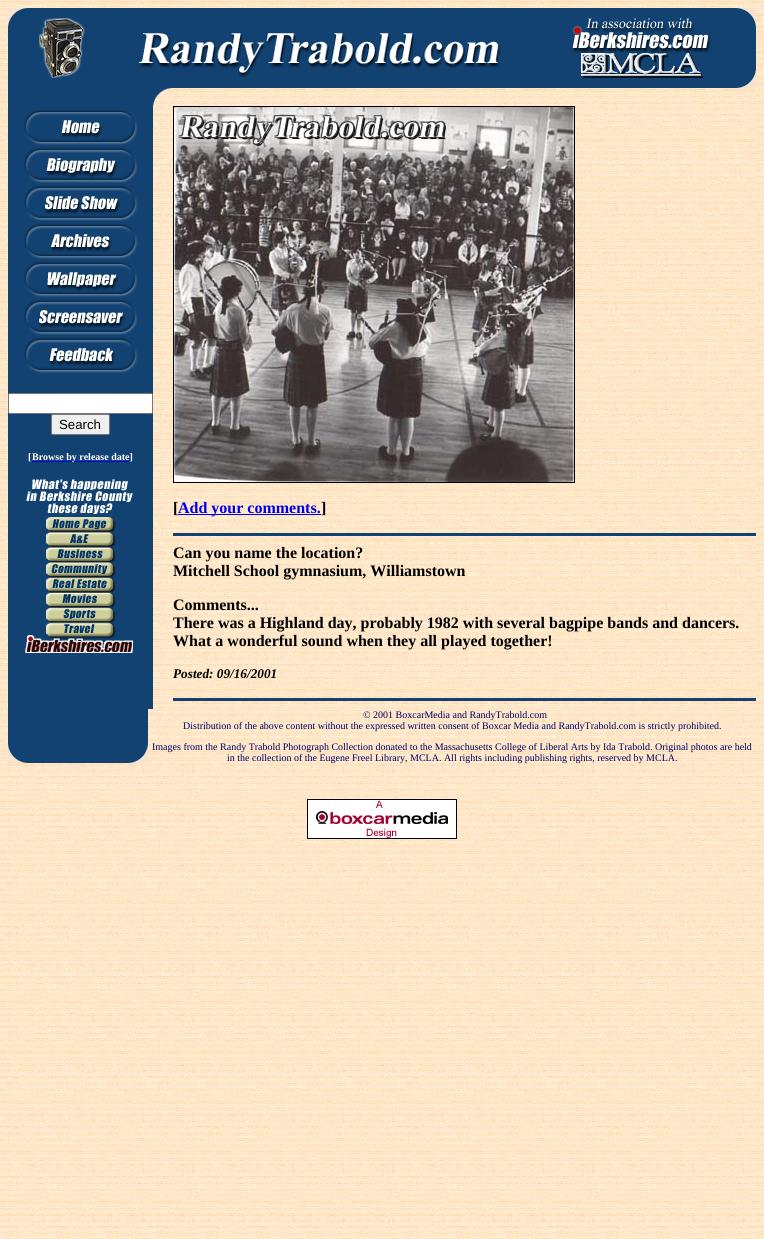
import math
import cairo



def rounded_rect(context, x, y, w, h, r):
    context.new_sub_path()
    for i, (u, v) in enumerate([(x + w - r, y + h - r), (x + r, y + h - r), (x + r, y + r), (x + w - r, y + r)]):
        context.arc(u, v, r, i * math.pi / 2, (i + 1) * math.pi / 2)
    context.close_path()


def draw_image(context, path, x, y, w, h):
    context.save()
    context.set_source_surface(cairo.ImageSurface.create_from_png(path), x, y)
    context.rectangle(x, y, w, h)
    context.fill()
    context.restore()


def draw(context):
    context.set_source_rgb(1, 1, 1)
    context.paint()
    draw_image(context, "images/1.png", 0, 0, 764, 1239)
    context.set_source_rgb(18 / 255, 66 / 255, 113 / 255)
    context.rectangle(8, 8, 748, 80)
    context.fill()
    draw_image(context, "images/2.png", 8, 8, 20, 20)
    draw_image(context, "images/3.png", 39, 18, 46, 60)
    draw_image(context, "images/4.png", 139, 33, 362, 44)
    draw_image(context, "images/5.png", 572, 18, 139, 35)
    draw_image(context, "images/6.png", 581, 53, 122, 25)
    draw_image(context, "images/7.png", 736, 8, 20, 20)
    draw_image(context, "images/8.png", 736, 68, 20, 20)
    context.rectangle(8, 88, 145, 621)
    context.fill()
    draw_image(context, "images/9.png", 24, 110, 114, 263)
    context.set_source_rgb(1, 1, 1)
    rounded_rect(context, 8.5, 393.5, 144, 20, 1.5)
    context.fill_preserve()
    context.set_source_rgb(118 / 255, 118 / 255, 118 / 255)
    context.set_line_width(1)
    context.stroke()
    context.set_source_rgb(239 / 255, 239 / 255, 239 / 255)
    rounded_rect(context, 51.5, 414.5, 58, 20, 1.5)
    context.fill_preserve()
    context.set_source_rgb(118 / 255, 118 / 255, 118 / 255)
    context.stroke()
    context.set_source_rgb(0, 0, 238 / 255)
    context.rectangle(32, 461, 97, 1)
    context.fill()
    draw_image(context, "images/10.png", 25, 479, 108, 174)
    draw_image(context, "images/11.png", 153, 88, 20, 621)
    draw_image(context, "images/12.png", 153, 88, 18, 18)
    draw_image(context, "images/13.png", 173, 88, 583, 621)
    context.rectangle(173.5, 106.5, 401, 376)
    context.set_source_rgb(0, 0, 0)
    context.stroke()
    draw_image(context, "images/14.png", 174, 107, 400, 375)
    context.set_source_rgb(0, 0, 238 / 255)
    context.rectangle(178, 514, 143, 1)
    context.fill()
    context.set_source_rgb(18 / 255, 66 / 255, 113 / 255)
    context.rectangle(173, 533, 583, 3)
    context.fill()
    context.rectangle(173, 698, 583, 3)
    context.fill()
    context.rectangle(8, 709, 20, 53)
    context.fill()
    draw_image(context, "images/15.png", 8, 743, 20, 20)
    context.rectangle(28, 709, 100, 54)
    context.fill()
    context.rectangle(128, 709, 20, 53)
    context.fill()
    draw_image(context, "images/8.png", 128, 743, 20, 20)
    draw_image(context, "images/16.png", 307, 799, 150, 40)
    context.select_font_face("Liberation Sans")
    context.set_font_size(13.25)
    context.set_source_rgb(0, 0, 0)
    context.move_to(59, 429)
    context.show_text("Search")
    context.select_font_face("Liberation Serif", cairo.FontSlant.NORMAL, cairo.FontWeight.BOLD)
    context.set_font_size(10)
    context.set_source_rgb(1, 1, 1)
    context.move_to(28, 460)
    context.show_text("[")
    context.move_to(32, 460)
    context.show_text("Browse by release date]")
    context.set_font_size(16)
    context.set_source_rgb(0, 0, 0)
    context.move_to(173, 513)
    context.show_text("[")
    context.set_source_rgb(0, 0, 238 / 255)
    context.move_to(178, 513)
    context.show_text("Add your comments.")
    context.set_source_rgb(0, 0, 0)
    context.move_to(321, 513)
    context.show_text("]")
    context.move_to(173, 558)
    context.show_text("Can you name the location?")
    context.move_to(173, 576)
    context.show_text("Mitchell School gymnasium, Williamstown")
    context.move_to(173, 610)
    context.show_text("Comments...")
    context.move_to(173, 628)
    context.show_text("There was a Highland day, probably 1982 with several bagpipe bands and dancers.")
    context.move_to(173, 646)
    context.show_text("What a wonderful sound when they all played together!")
    context.select_font_face("Liberation Serif", cairo.FontSlant.ITALIC, cairo.FontWeight.BOLD)
    context.set_font_size(13.25)
    context.move_to(173, 678)
    context.show_text("Posted: 09/16/2001")
    context.select_font_face("Liberation Serif")
    context.set_font_size(10)
    context.set_source_rgb(0, 0, 102 / 255)
    context.move_to(363, 718)
    context.show_text("© 2001 BoxcarMedia and RandyTrabold.com")
    context.move_to(183, 729)
    context.show_text("Distribution of the above content without the expressed written consent of Boxcar Media and RandyTrabold.com is strictly prohibited.")
    context.move_to(152, 750)
    context.show_text("Images from the Randy Trabold Photograph Collection donated to the Massachusetts College of Liberal Arts by Ida Trabold. Original photos are held")
    context.move_to(227, 761)
    context.show_text("in the collection of the Eugene Freel Library, MCLA. All rights including publishing rights, reserved by MCLA.")


surface = cairo.ImageSurface(cairo.Format.RGB24, 764, 1239)
context = cairo.Context(surface)
options = cairo.FontOptions()
options.set_hint_metrics(cairo.HintMetrics.OFF)
options.set_hint_style(cairo.HintStyle.NONE)
context.set_font_options(options)
context.set_miter_limit(4)
draw(context)
surface.write_to_png("out.png")
